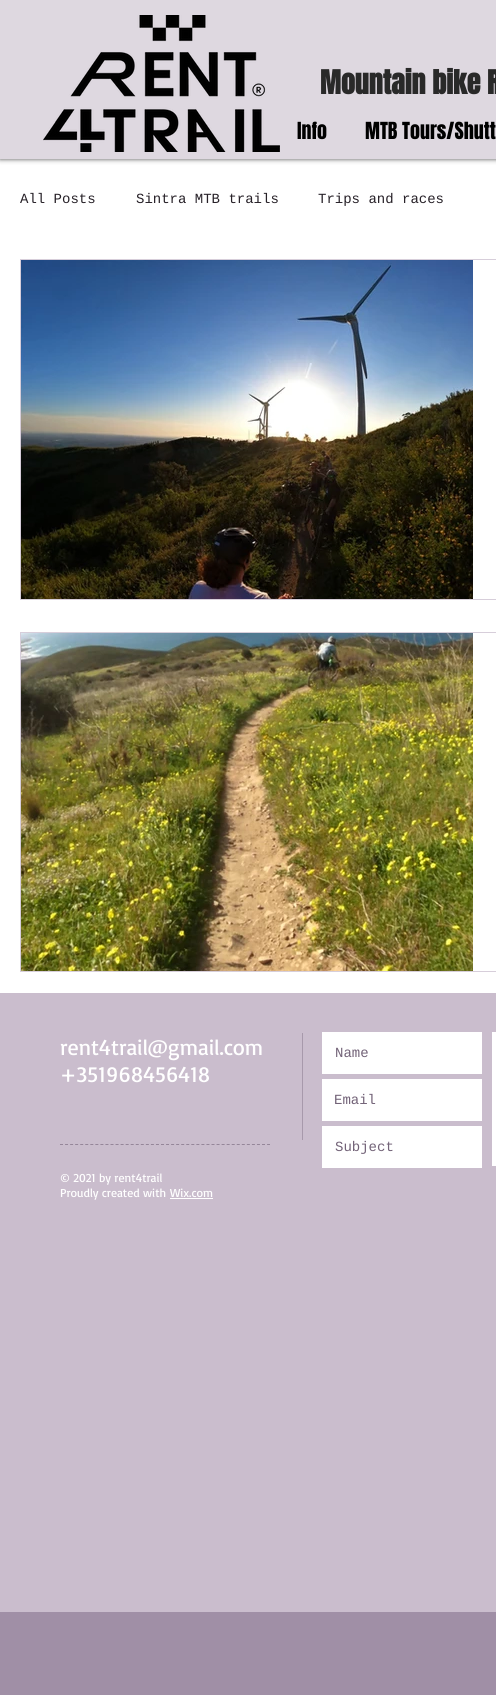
import math
import cairo



def rounded_rect(context, x, y, w, h, r):
    context.new_sub_path()
    for i, (u, v) in enumerate([(x + w - r, y + h - r), (x + r, y + h - r), (x + r, y + r), (x + w - r, y + r)]):
        context.arc(u, v, r, i * math.pi / 2, (i + 1) * math.pi / 2)
    context.close_path()


def draw_shadow(context, x, y, w, h, r, blur, alpha):
    context.push_group_with_content(cairo.Content.ALPHA)
    context.set_operator(cairo.Operator.SOURCE)
    for i in range(15, -16, -2):
        e = blur * i / 6
        if min(w, h) + 2 * e > 0:
            context.set_source_rgba(0, 0, 0, alpha * math.erfc((i - 1) / 8.5) / 2)
            rounded_rect(context, x - e, y - e, w + 2 * e, h + 2 * e, max(0, min(r + e + blur * .6, min(w, h) / 2 + e)))
            context.fill()
    context.mask(context.pop_group())


def draw_image(context, path, x, y, w, h):
    context.save()
    context.set_source_surface(cairo.ImageSurface.create_from_png(path), x, y)
    context.rectangle(x, y, w, h)
    context.fill()
    context.restore()


def draw(context):
    context.set_source_rgb(160 / 255, 143 / 255, 166 / 255)
    context.paint()
    context.set_source_rgb(1, 1, 1)
    context.rectangle(0, 159, 496, 834)
    context.fill()
    context.set_source_rgb(0, 0, 0)
    draw_shadow(context, 0, 0, 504, 159, 0, 2.5, 0.7)
    context.set_source_rgb(222 / 255, 216 / 255, 224 / 255)
    context.rectangle(0, 0, 496, 159)
    context.fill()
    draw_image(context, "images/1.png", 43, 15, 237, 137)
    context.rectangle(20.5, 259.5, 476, 340)
    context.set_source_rgb(215 / 255, 206 / 255, 218 / 255)
    context.set_line_width(1)
    context.stroke()
    draw_image(context, "images/2.png", 21, 260, 452, 339)
    context.rectangle(20.5, 632.5, 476, 339)
    context.stroke()
    draw_image(context, "images/3.png", 21, 633, 452, 338)
    context.set_source_rgb(202 / 255, 189 / 255, 205 / 255)
    context.rectangle(0, 993, 496, 619)
    context.fill()
    context.set_source_rgb(167 / 255, 153 / 255, 171 / 255)
    context.rectangle(302, 1033, 1, 107)
    context.fill()
    context.set_source_rgb(1, 1, 1)
    context.rectangle(322, 1032, 160, 42)
    context.fill()
    context.rectangle(492, 1032, 4, 134)
    context.fill()
    context.rectangle(322, 1079, 160, 42)
    context.fill()
    context.rectangle(322, 1126, 160, 42)
    context.fill()
    context.new_path()
    context.move_to(60, 1144.5)
    context.line_to(270, 1144.5)
    context.set_source_rgb(149 / 255, 134 / 255, 153 / 255)
    context.set_dash([3, 2.05])
    context.stroke()
    context.set_source_rgb(1, 1, 1)
    context.rectangle(170, 1198, 43, 1)
    context.fill()
    context.select_font_face("Anton", cairo.FontSlant.NORMAL, cairo.FontWeight.BOLD)
    context.set_font_size(28)
    context.set_source_rgb(41 / 255, 41 / 255, 41 / 255)
    context.move_to(320, 94)
    context.show_text("Mountain bike R")
    context.select_font_face("Anton")
    context.set_font_size(20)
    context.set_source_rgb(0, 0, 0)
    context.move_to(297, 139)
    context.show_text("Info")
    context.move_to(365, 139)
    context.show_text("MTB Tours/Shutt")
    context.select_font_face("Liberation Mono")
    context.set_font_size(14)
    context.set_source_rgb(38 / 255, 32 / 255, 39 / 255)
    context.move_to(20, 203)
    context.show_text("All Posts")
    context.move_to(136, 203)
    context.show_text("Sintra MTB trails")
    context.move_to(318, 203)
    context.show_text("Trips and races")
    context.select_font_face("Basic")
    context.set_font_size(22)
    context.set_source_rgb(1, 1, 1)
    context.move_to(60, 1055)
    context.show_text("rent4trail@gmail.com")
    context.move_to(60, 1082)
    context.show_text("+351968456418")
    context.select_font_face("Liberation Mono")
    context.set_font_size(14)
    context.set_source_rgb(114 / 255, 98 / 255, 119 / 255)
    context.move_to(335, 1057)
    context.show_text("Name")
    context.move_to(334, 1104)
    context.show_text("Email")
    context.move_to(335, 1151)
    context.show_text("Subject")
    context.select_font_face("Basic")
    context.set_font_size(12)
    context.set_source_rgb(1, 1, 1)
    context.move_to(60, 1182)
    context.show_text("© 2021 by rent4trail")
    context.move_to(60, 1197)
    context.show_text("Proudly created with")
    context.move_to(170, 1197)
    context.show_text("Wix.com")


surface = cairo.ImageSurface(cairo.Format.RGB24, 496, 1695)
context = cairo.Context(surface)
options = cairo.FontOptions()
options.set_hint_metrics(cairo.HintMetrics.OFF)
options.set_hint_style(cairo.HintStyle.NONE)
context.set_font_options(options)
context.set_miter_limit(4)
draw(context)
surface.write_to_png("out.png")
